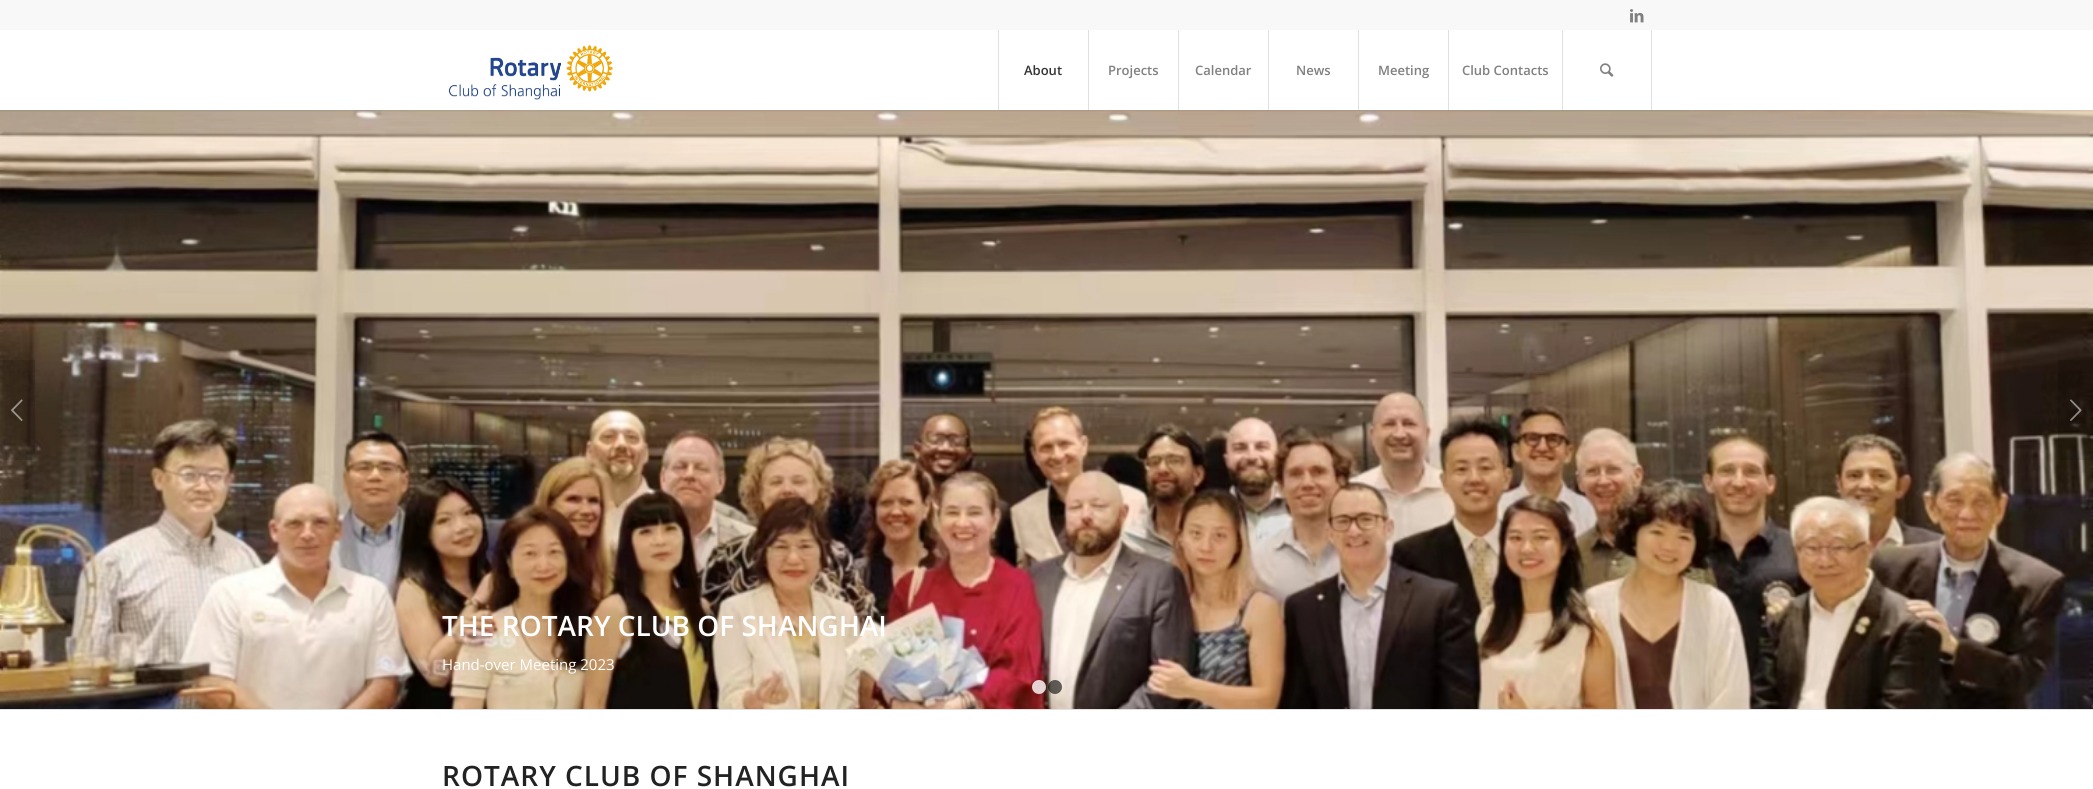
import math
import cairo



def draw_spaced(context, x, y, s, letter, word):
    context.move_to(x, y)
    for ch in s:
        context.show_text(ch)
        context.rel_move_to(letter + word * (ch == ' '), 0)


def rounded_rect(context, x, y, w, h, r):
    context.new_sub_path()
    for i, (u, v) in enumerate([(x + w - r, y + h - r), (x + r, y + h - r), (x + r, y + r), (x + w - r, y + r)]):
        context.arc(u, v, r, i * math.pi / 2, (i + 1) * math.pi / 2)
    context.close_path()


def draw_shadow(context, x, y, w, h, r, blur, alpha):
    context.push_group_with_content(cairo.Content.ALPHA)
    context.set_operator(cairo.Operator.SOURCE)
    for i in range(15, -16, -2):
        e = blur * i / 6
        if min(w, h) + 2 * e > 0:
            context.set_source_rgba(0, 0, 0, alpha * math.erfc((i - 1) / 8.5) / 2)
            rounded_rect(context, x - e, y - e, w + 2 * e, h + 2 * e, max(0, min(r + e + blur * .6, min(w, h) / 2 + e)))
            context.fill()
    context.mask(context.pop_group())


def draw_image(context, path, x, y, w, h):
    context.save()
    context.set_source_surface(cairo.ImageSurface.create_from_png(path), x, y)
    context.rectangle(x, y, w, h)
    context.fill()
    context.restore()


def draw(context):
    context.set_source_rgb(1, 1, 1)
    context.paint()
    draw_image(context, "images/6.png", 0, 110, 2093, 599)
    context.save()
    context.rectangle(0, 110, 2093, 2)
    context.clip()
    context.set_source_rgb(0, 0, 0)
    draw_shadow(context, -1, -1, 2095, 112, 0, 1, 0.1)
    context.restore()
    context.set_source_rgb(248 / 255, 248 / 255, 248 / 255)
    context.rectangle(0, 0, 2093, 30)
    context.fill()
    draw_image(context, "images/1.png", 1630, 9, 14, 14)
    draw_image(context, "images/2.png", 448, 45, 165, 55)
    context.set_source_rgb(225 / 255, 225 / 255, 225 / 255)
    context.rectangle(998, 30, 1, 80)
    context.fill()
    context.rectangle(1088, 30, 1, 80)
    context.fill()
    context.rectangle(1178, 30, 1, 80)
    context.fill()
    context.rectangle(1268, 30, 1, 80)
    context.fill()
    context.rectangle(1358, 30, 1, 80)
    context.fill()
    context.rectangle(1448, 30, 1, 80)
    context.fill()
    context.rectangle(1651, 30, 1, 80)
    context.fill()
    context.rectangle(1562, 30, 1, 80)
    context.fill()
    draw_image(context, "images/3.png", 1600, 63, 14, 14)
    context.set_source_rgba(0, 0, 0, 0.15)
    context.rectangle(0, 360, 35, 100)
    context.fill()
    draw_image(context, "images/4.png", 11, 399, 12, 22)
    context.rectangle(2058, 360, 35, 100)
    context.fill()
    draw_image(context, "images/5.png", 2070, 399, 12, 22)
    context.set_source_rgba(1, 1, 1, 0.8)
    context.arc(1039, 687, 7, 0, 2 * math.pi)
    context.fill()
    context.set_source_rgba(0, 0, 0, 0.6)
    context.arc(1055, 687, 7, 0, 2 * math.pi)
    context.fill()
    context.set_source_rgb(225 / 255, 225 / 255, 225 / 255)
    context.rectangle(0, 709, 2093, 1)
    context.fill()
    context.select_font_face("Open Sans SemiBold")
    context.set_font_size(13)
    context.set_source_rgb(51 / 255, 51 / 255, 51 / 255)
    context.move_to(1024, 75)
    context.show_text("About")
    context.set_source_rgb(128 / 255, 128 / 255, 128 / 255)
    context.move_to(1108, 75)
    context.show_text("Projects")
    context.move_to(1195, 75)
    context.show_text("Calendar")
    context.move_to(1296, 75)
    context.show_text("News")
    context.move_to(1378, 75)
    context.show_text("Meeting")
    context.move_to(1462, 75)
    context.show_text("Club Contacts")
    context.set_font_size(28)
    context.set_source_rgb(1, 1, 1)
    context.move_to(442, 636)
    context.show_text("THE ROTARY CLUB OF SHANGHAI")
    context.select_font_face("Open Sans")
    context.set_font_size(15)
    context.move_to(442, 670)
    context.show_text("Hand-over Meeting 2023")
    context.select_font_face("Open Sans SemiBold")
    context.set_font_size(28)
    context.set_source_rgb(34 / 255, 34 / 255, 34 / 255)
    draw_spaced(context, 442, 786, "ROTARY CLUB OF SHANGHAI", 1, 0)


surface = cairo.ImageSurface(cairo.Format.RGB24, 2093, 789)
context = cairo.Context(surface)
options = cairo.FontOptions()
options.set_hint_metrics(cairo.HintMetrics.OFF)
options.set_hint_style(cairo.HintStyle.NONE)
context.set_font_options(options)
context.set_miter_limit(4)
draw(context)
surface.write_to_png("out.png")
